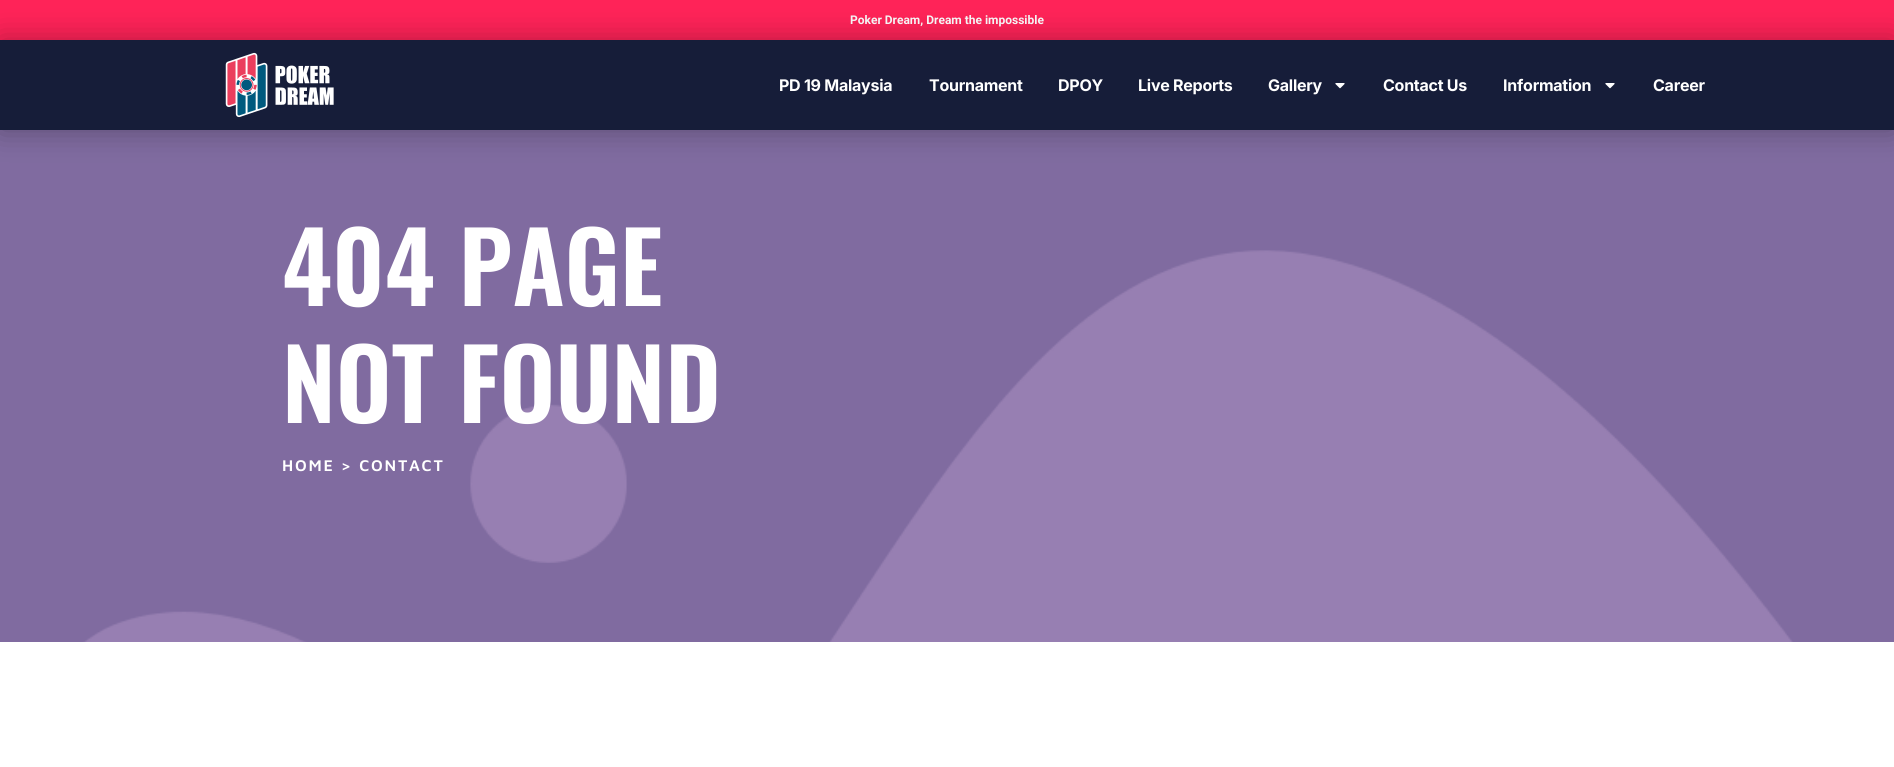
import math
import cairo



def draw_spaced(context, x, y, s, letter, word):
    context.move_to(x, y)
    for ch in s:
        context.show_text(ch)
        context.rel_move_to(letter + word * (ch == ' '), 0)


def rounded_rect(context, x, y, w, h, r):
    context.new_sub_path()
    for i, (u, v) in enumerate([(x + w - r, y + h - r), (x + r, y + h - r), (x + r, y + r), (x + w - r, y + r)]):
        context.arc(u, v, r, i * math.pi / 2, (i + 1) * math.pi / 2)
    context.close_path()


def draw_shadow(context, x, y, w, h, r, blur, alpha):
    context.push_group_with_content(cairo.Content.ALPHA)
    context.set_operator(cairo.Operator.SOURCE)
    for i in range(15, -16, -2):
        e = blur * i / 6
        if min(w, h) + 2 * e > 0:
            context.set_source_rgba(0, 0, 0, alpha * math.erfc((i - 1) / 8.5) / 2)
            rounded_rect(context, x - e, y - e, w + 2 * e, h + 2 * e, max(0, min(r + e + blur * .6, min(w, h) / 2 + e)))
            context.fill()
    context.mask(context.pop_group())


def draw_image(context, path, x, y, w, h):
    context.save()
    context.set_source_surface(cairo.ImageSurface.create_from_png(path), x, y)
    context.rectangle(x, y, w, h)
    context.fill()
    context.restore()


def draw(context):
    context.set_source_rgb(1, 1, 1)
    context.paint()
    context.set_source_rgb(1, 35 / 255, 88 / 255)
    context.rectangle(0, 0, 1894, 40)
    context.fill()
    draw_image(context, "images/3.png", 0, 130, 1894, 512)
    context.set_source_rgb(0, 0, 0)
    draw_shadow(context, 0, 40, 1894, 90, 0, 15, 0.3)
    context.set_source_rgb(22 / 255, 29 / 255, 57 / 255)
    context.rectangle(0, 40, 1894, 90)
    context.fill()
    draw_image(context, "images/1.png", 225, 52, 109, 66)
    draw_image(context, "images/2.png", 1335, 83, 10, 6)
    draw_image(context, "images/2.png", 1605, 83, 10, 6)
    context.select_font_face("Roboto", cairo.FontSlant.NORMAL, cairo.FontWeight.BOLD)
    context.set_font_size(12)
    context.set_source_rgb(244 / 255, 244 / 255, 244 / 255)
    context.move_to(850, 24)
    context.show_text("Poker Dream, Dream the impossible")
    context.select_font_face("Inter", cairo.FontSlant.NORMAL, cairo.FontWeight.BOLD)
    context.set_font_size(16)
    context.set_source_rgb(1, 1, 1)
    draw_spaced(context, 779, 91, "PD 19 Malaysia", -0.25, 0)
    draw_spaced(context, 929, 91, "Tournament", -0.25, 0)
    draw_spaced(context, 1058, 91, "DPOY", -0.25, 0)
    draw_spaced(context, 1138, 91, "Live Reports", -0.25, 0)
    draw_spaced(context, 1268, 91, "Gallery", -0.25, 0)
    draw_spaced(context, 1383, 91, "Contact Us", -0.25, 0)
    draw_spaced(context, 1503, 91, "Information", -0.25, 0)
    draw_spaced(context, 1653, 91, "Career", -0.25, 0)
    context.select_font_face("Oswald SemiBold")
    context.set_font_size(97)
    context.move_to(282, 306)
    context.show_text("404 PAGE")
    context.move_to(282, 423)
    context.show_text("NOT FOUND")
    context.select_font_face("Maven Pro SemiBold")
    context.set_font_size(16)
    draw_spaced(context, 282, 471, "HOME > CONTACT", 1.75, 0)


surface = cairo.ImageSurface(cairo.Format.RGB24, 1894, 767)
context = cairo.Context(surface)
options = cairo.FontOptions()
options.set_hint_metrics(cairo.HintMetrics.OFF)
options.set_hint_style(cairo.HintStyle.NONE)
context.set_font_options(options)
context.set_miter_limit(4)
draw(context)
surface.write_to_png("out.png")
